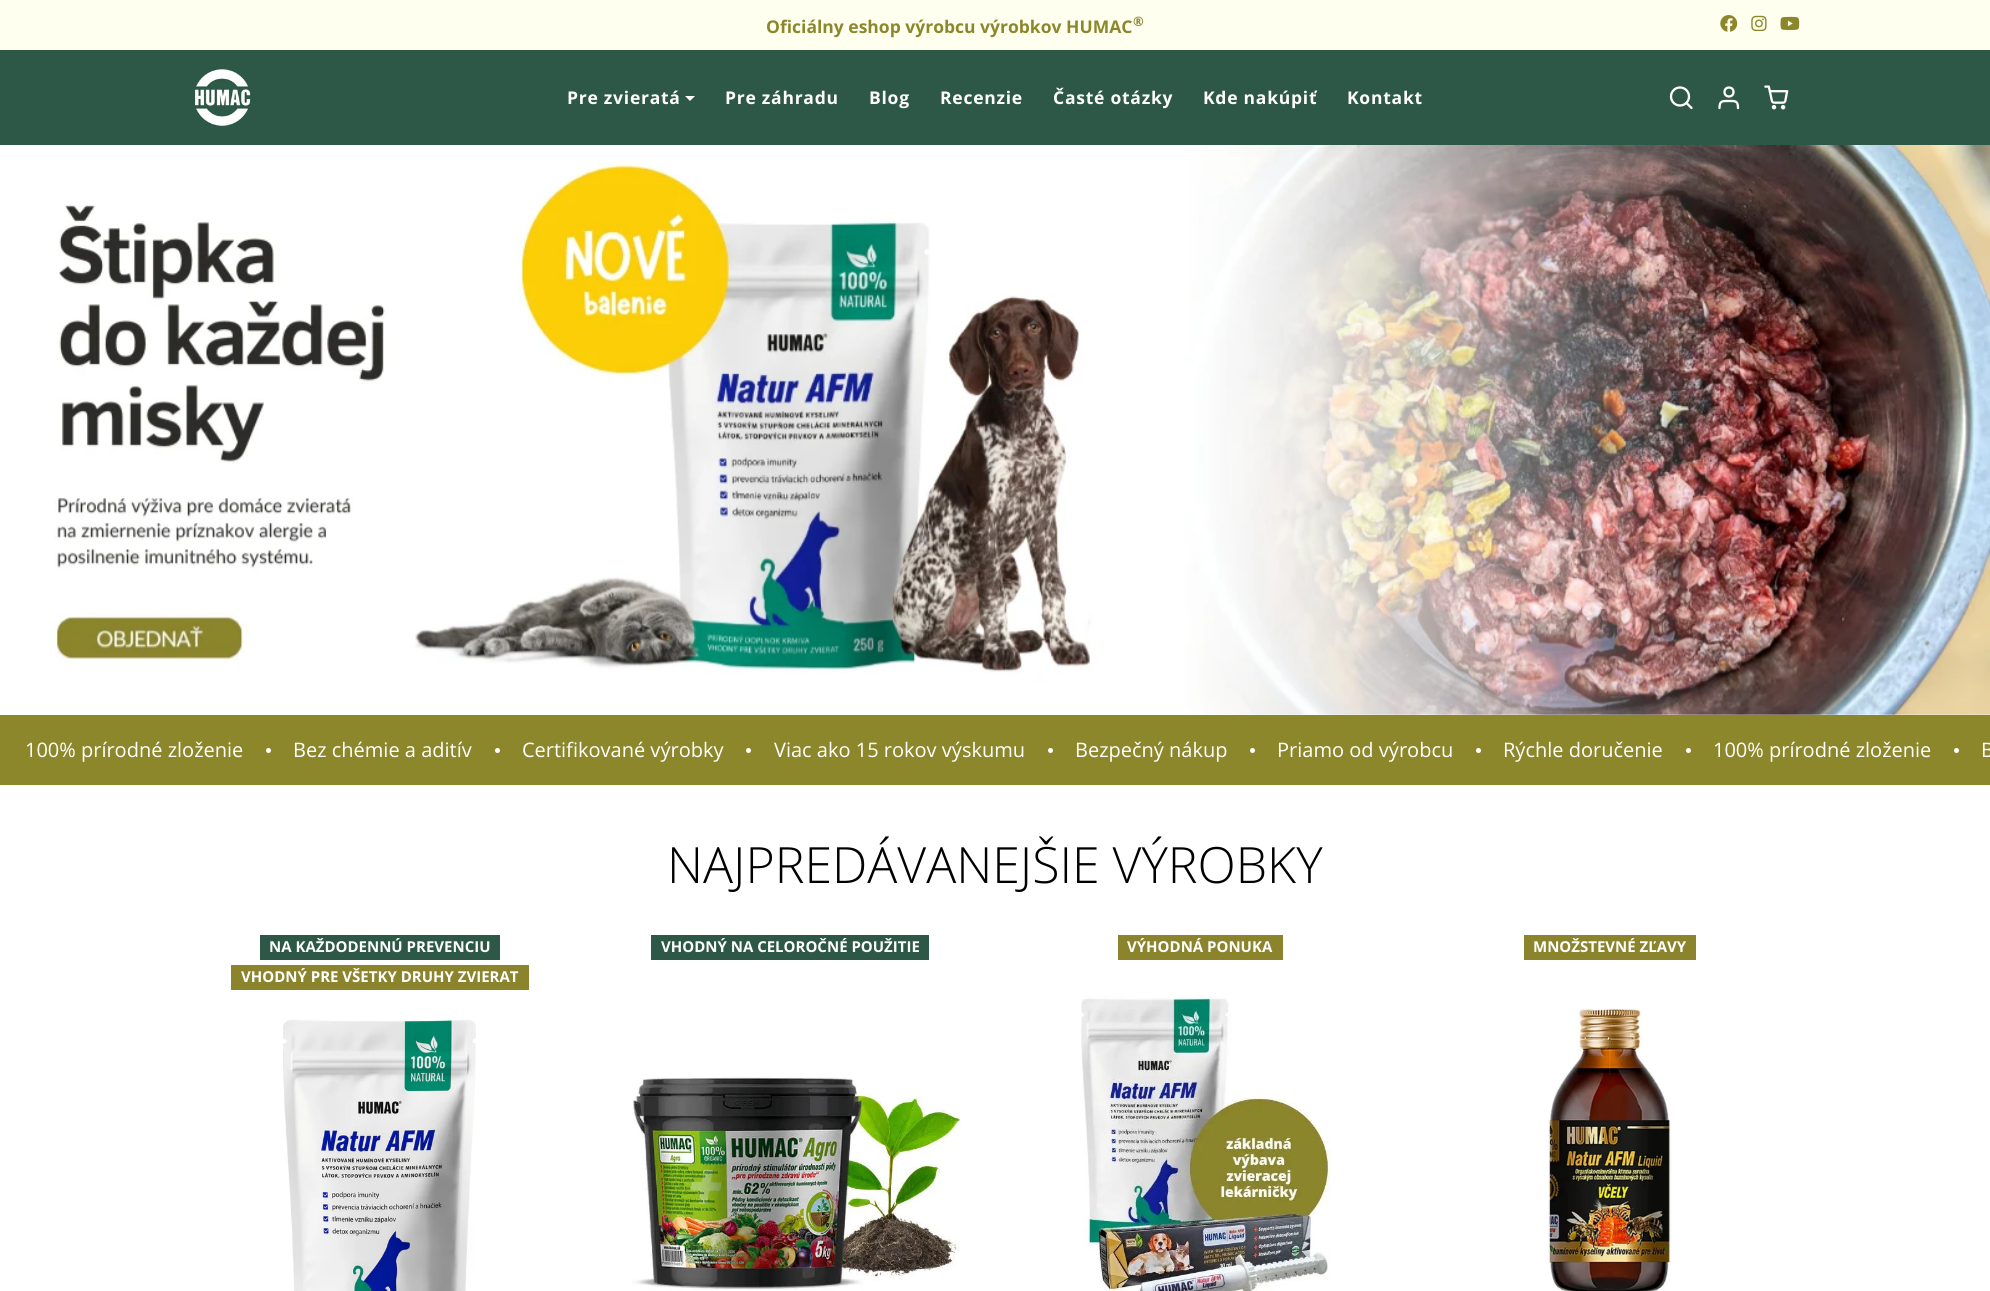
import math
import cairo



def draw_spaced(context, x, y, s, letter, word):
    context.move_to(x, y)
    for ch in s:
        context.show_text(ch)
        context.rel_move_to(letter + word * (ch == ' '), 0)


def rounded_rect(context, x, y, w, h, r):
    context.new_sub_path()
    for i, (u, v) in enumerate([(x + w - r, y + h - r), (x + r, y + h - r), (x + r, y + r), (x + w - r, y + r)]):
        context.arc(u, v, r, i * math.pi / 2, (i + 1) * math.pi / 2)
    context.close_path()


def draw_image(context, path, x, y, w, h):
    context.save()
    context.set_source_surface(cairo.ImageSurface.create_from_png(path), x, y)
    context.rectangle(x, y, w, h)
    context.fill()
    context.restore()


def draw(context):
    context.set_source_rgb(1, 1, 1)
    context.paint()
    context.set_source_rgb(1, 1, 240 / 255)
    context.rectangle(0, 0, 1990, 50)
    context.fill()
    draw_image(context, "images/1.png", 1720, 15, 18, 17)
    draw_image(context, "images/2.png", 1751, 15, 16, 17)
    draw_image(context, "images/3.png", 1780, 16, 20, 14)
    context.set_source_rgb(45 / 255, 88 / 255, 71 / 255)
    context.rectangle(0, 50, 1990, 95)
    context.fill()
    draw_image(context, "images/4.png", 195, 68, 57, 61)
    context.set_source_rgb(1, 1, 1)
    context.new_path()
    context.move_to(685, 96)
    context.line_to(695, 96)
    context.line_to(690, 101)
    context.close_path()
    context.fill()
    context.arc(1680, 96.5, 9, 0, 2 * math.pi)
    context.set_line_width(2.3)
    context.stroke()
    context.new_path()
    context.move_to(1691.5, 108)
    context.line_to(1686.5, 103)
    context.move_to(1738, 108)
    context.curve_to(1738, 100.5, 1735, 101, 1729, 101)
    context.curve_to(1722.5, 101, 1719.5, 100.5, 1719.5, 108)
    context.set_line_cap(cairo.LineCap.ROUND)
    context.set_line_join(cairo.LineJoin.ROUND)
    context.stroke()
    draw_image(context, "images/5.png", 1764, 85, 25, 25)
    context.arc(1729, 92, 4.5, 0, 2 * math.pi)
    context.set_line_cap(cairo.LineCap.BUTT)
    context.set_line_join(cairo.LineJoin.MITER)
    context.stroke()
    draw_image(context, "images/6.png", 0, 145, 1990, 570)
    rounded_rect(context, 970, 670, 15, 14, 7)
    context.fill()
    context.set_source_rgb(141 / 255, 135 / 255, 44 / 255)
    context.rectangle(0, 715, 1990, 70)
    context.fill()
    context.set_source_rgb(1, 1, 1)
    context.arc(268.5, 750.5, 2.5, 0, 2 * math.pi)
    context.fill()
    context.arc(497.5, 750.5, 2.5, 0, 2 * math.pi)
    context.fill()
    context.arc(748.5, 750.5, 2.5, 0, 2 * math.pi)
    context.fill()
    context.arc(1050.5, 750.5, 2.5, 0, 2 * math.pi)
    context.fill()
    context.arc(1252.5, 750.5, 2.5, 0, 2 * math.pi)
    context.fill()
    context.arc(1478.5, 750.5, 2.5, 0, 2 * math.pi)
    context.fill()
    context.arc(1688.5, 750.5, 2.5, 0, 2 * math.pi)
    context.fill()
    context.arc(1956.5, 750.5, 2.5, 0, 2 * math.pi)
    context.fill()
    context.set_source_rgb(45 / 255, 88 / 255, 71 / 255)
    context.rectangle(260, 935, 240, 25)
    context.fill()
    context.set_source_rgb(140 / 255, 132 / 255, 44 / 255)
    context.rectangle(231, 965, 298, 25)
    context.fill()
    draw_image(context, "images/7.png", 283, 1019, 193, 272)
    context.set_source_rgb(45 / 255, 88 / 255, 71 / 255)
    context.rectangle(651, 935, 278, 25)
    context.fill()
    draw_image(context, "images/8.png", 632, 1076, 329, 215)
    context.set_source_rgb(140 / 255, 132 / 255, 44 / 255)
    context.rectangle(1118, 935, 165, 25)
    context.fill()
    draw_image(context, "images/9.png", 1081, 994, 250, 297)
    context.rectangle(1524, 935, 172, 25)
    context.fill()
    draw_image(context, "images/10.png", 1548, 1008, 124, 283)
    context.select_font_face("Open Sans", cairo.FontSlant.NORMAL, cairo.FontWeight.BOLD)
    context.set_font_size(17.5)
    context.set_source_rgb(141 / 255, 135 / 255, 44 / 255)
    context.move_to(766, 33)
    context.show_text("Oficiálny eshop výrobcu výrobkov HUMAC")
    context.set_font_size(13)
    context.move_to(1133, 26)
    context.show_text("®")
    context.set_font_size(17.5)
    context.set_source_rgb(1, 1, 1)
    draw_spaced(context, 567, 104, "Pre zvieratá", 0.75, 0)
    draw_spaced(context, 725, 104, "Pre záhradu", 0.75, 0)
    draw_spaced(context, 869, 104, "Blog", 0.75, 0)
    draw_spaced(context, 940, 104, "Recenzie", 0.75, 0)
    draw_spaced(context, 1053, 104, "Časté otázky", 0.75, 0)
    draw_spaced(context, 1203, 104, "Kde nakúpiť", 0.75, 0)
    draw_spaced(context, 1347, 104, "Kontakt", 0.75, 0)
    context.select_font_face("Open Sans")
    context.set_font_size(20)
    context.move_to(25, 757)
    context.show_text("100% prírodné zloženie")
    context.move_to(293, 757)
    context.show_text("Bez chémie a aditív")
    context.move_to(522, 757)
    context.show_text("Certifikované výrobky")
    context.move_to(774, 757)
    context.show_text("Viac ako 15 rokov výskumu")
    context.move_to(1075, 757)
    context.show_text("Bezpečný nákup")
    context.move_to(1277, 757)
    context.show_text("Priamo od výrobcu")
    context.move_to(1503, 757)
    context.show_text("Rýchle doručenie")
    context.move_to(1713, 757)
    context.show_text("100% prírodné zloženie")
    context.move_to(1981, 757)
    context.show_text("B")
    context.select_font_face("Open Sans Light")
    context.set_font_size(50)
    context.set_source_rgb(0, 0, 0)
    context.move_to(667, 883)
    context.show_text("NAJPREDÁVANEJŠIE VÝROBKY")
    context.select_font_face("Open Sans", cairo.FontSlant.NORMAL, cairo.FontWeight.BOLD)
    context.set_font_size(15)
    context.set_source_rgb(1, 1, 1)
    context.move_to(269, 952)
    context.show_text("NA KAŽDODENNÚ PREVENCIU")
    context.move_to(241, 982)
    context.show_text("VHODNÝ PRE VŠETKY DRUHY ZVIERAT")
    context.move_to(661, 952)
    context.show_text("VHODNÝ NA CELOROČNÉ POUŽITIE")
    context.move_to(1127, 952)
    context.show_text("VÝHODNÁ PONUKA")
    context.move_to(1533, 952)
    context.show_text("MNOŽSTEVNÉ ZĽAVY")


surface = cairo.ImageSurface(cairo.Format.RGB24, 1990, 1291)
context = cairo.Context(surface)
options = cairo.FontOptions()
options.set_hint_metrics(cairo.HintMetrics.OFF)
options.set_hint_style(cairo.HintStyle.NONE)
context.set_font_options(options)
context.set_miter_limit(4)
draw(context)
surface.write_to_png("out.png")
